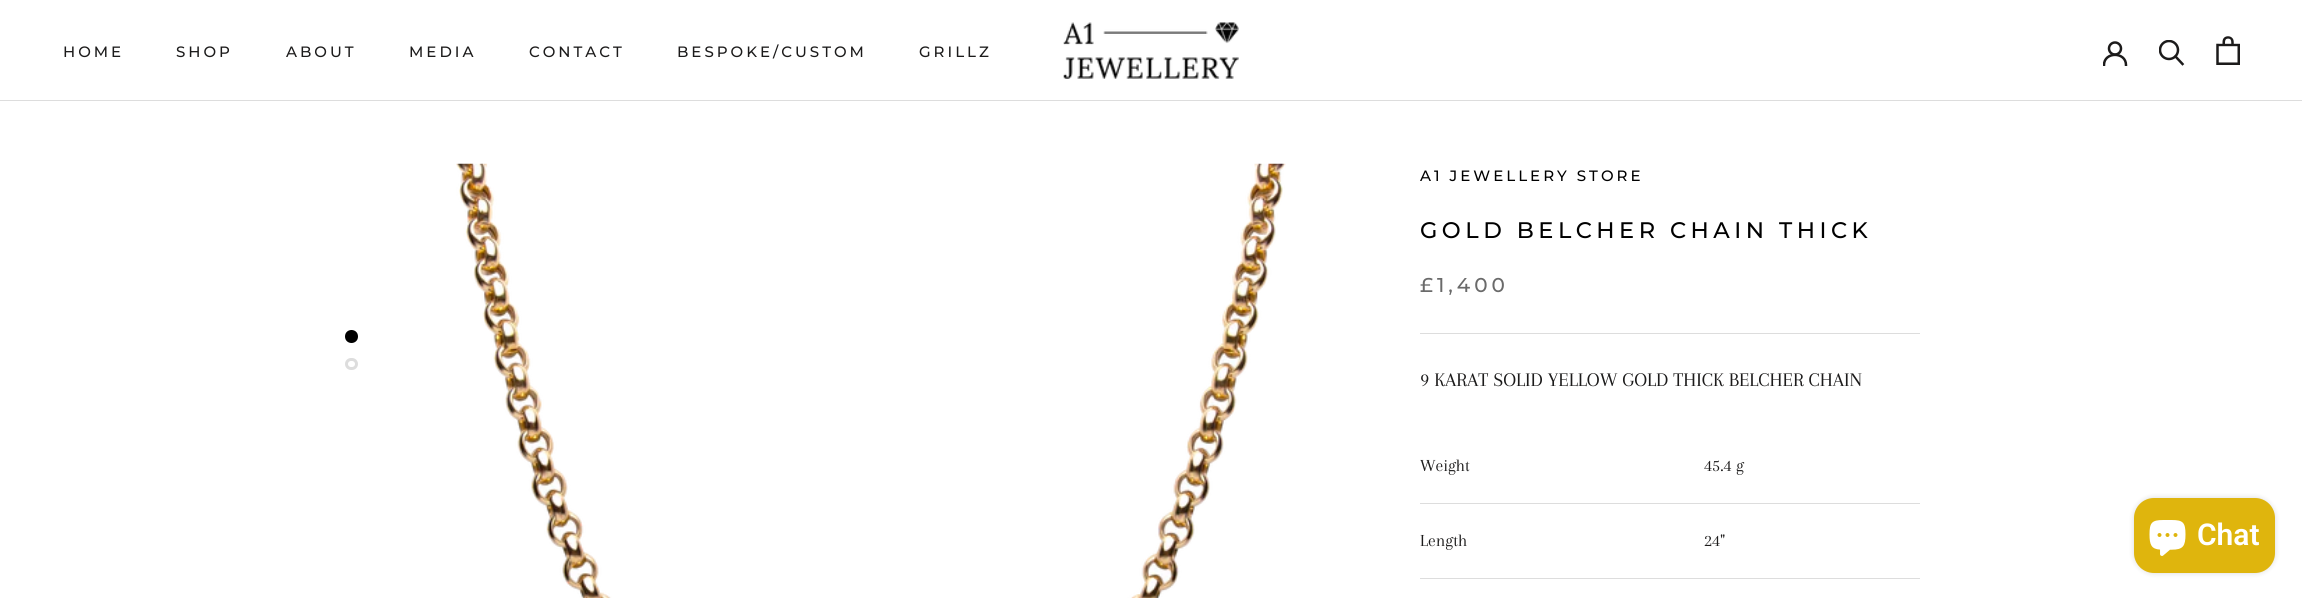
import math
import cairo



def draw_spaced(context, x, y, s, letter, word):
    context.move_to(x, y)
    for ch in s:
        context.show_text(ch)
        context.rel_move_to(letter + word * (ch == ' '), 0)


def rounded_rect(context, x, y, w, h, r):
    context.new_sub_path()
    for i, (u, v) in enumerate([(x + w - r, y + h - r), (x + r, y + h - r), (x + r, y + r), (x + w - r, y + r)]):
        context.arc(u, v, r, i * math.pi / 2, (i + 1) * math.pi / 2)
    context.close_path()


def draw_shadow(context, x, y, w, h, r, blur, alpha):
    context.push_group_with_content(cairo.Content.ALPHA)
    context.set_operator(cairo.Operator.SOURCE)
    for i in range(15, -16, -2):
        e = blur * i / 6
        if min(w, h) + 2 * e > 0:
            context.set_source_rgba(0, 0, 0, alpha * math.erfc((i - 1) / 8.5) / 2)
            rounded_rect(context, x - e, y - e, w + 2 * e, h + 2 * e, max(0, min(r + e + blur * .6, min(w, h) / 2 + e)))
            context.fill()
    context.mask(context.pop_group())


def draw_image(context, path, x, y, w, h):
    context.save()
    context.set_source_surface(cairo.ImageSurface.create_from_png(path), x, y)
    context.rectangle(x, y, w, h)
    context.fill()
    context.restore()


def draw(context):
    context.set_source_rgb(1, 1, 1)
    context.paint()
    context.set_source_rgb(221 / 255, 221 / 255, 221 / 255)
    context.rectangle(0, 100, 2302, 1)
    context.fill()
    draw_image(context, "images/1.png", 1063, 22, 176, 57)
    context.save()
    context.rectangle(2103, 41, 25, 25)
    context.clip()
    context.new_path()
    context.move_to(2104, 65)
    context.curve_to(2104, 51.5, 2126, 51.5, 2126, 65)
    context.set_source_rgb(28 / 255, 27 / 255, 27 / 255)
    context.set_line_width(2.5)
    context.set_line_cap(cairo.LineCap.SQUARE)
    context.stroke()
    context.restore()
    context.arc(2115, 48.5, 6, 0, 2 * math.pi)
    context.set_source_rgb(28 / 255, 27 / 255, 27 / 255)
    context.set_line_width(2.5)
    context.stroke()
    context.new_path()
    context.move_to(2182.5, 64)
    context.line_to(2175.5, 56.5)
    context.set_line_cap(cairo.LineCap.SQUARE)
    context.stroke()
    context.save()
    context.rectangle(2159, 40, 26, 26)
    context.clip()
    context.arc(2169, 50, 9, 0, 2 * math.pi)
    context.set_line_cap(cairo.LineCap.BUTT)
    context.stroke()
    context.restore()
    draw_image(context, "images/2.png", 2216, 36, 24, 29)
    context.set_source_rgb(0, 0, 0)
    context.arc(351.5, 336.5, 5, 0, 2 * math.pi)
    context.fill_preserve()
    context.set_line_width(3)
    context.set_line_cap(cairo.LineCap.BUTT)
    context.stroke()
    rounded_rect(context, 346.5, 359.5, 10, 9, 4.5)
    context.set_source_rgb(221 / 255, 221 / 255, 221 / 255)
    context.stroke()
    draw_image(context, "images/3.png", 456, 163, 830, 435)
    context.rectangle(1420, 333, 500, 1)
    context.fill()
    context.rectangle(1420, 503, 500, 1)
    context.fill()
    context.rectangle(1420, 578, 500, 1)
    context.fill()
    context.set_source_rgb(0, 0, 0)
    draw_shadow(context, 2134, 498, 141, 75, 20, 3, 0.15)
    context.set_source_rgb(223 / 255, 181 / 255, 13 / 255)
    rounded_rect(context, 2134, 498, 141, 75, 20)
    context.fill()
    draw_image(context, "images/4.png", 2149, 520, 37, 36)
    context.select_font_face("Montserrat Medium")
    context.set_font_size(15)
    context.set_source_rgb(28 / 255, 27 / 255, 27 / 255)
    draw_spaced(context, 63, 57, "HOME", 3, 0)
    draw_spaced(context, 176, 57, "SHOP", 3, 0)
    draw_spaced(context, 286, 57, "ABOUT", 3, 0)
    draw_spaced(context, 409, 57, "MEDIA", 3, 0)
    draw_spaced(context, 529, 57, "CONTACT", 3, 0)
    draw_spaced(context, 677, 57, "BESPOKE/CUSTOM", 3, 0)
    draw_spaced(context, 919, 57, "GRILLZ", 3, 0)
    context.set_source_rgb(0, 0, 0)
    draw_spaced(context, 1420, 181, "A1 JEWELLERY STORE", 3, 0)
    context.set_font_size(22.5)
    draw_spaced(context, 1420, 238, "GOLD BELCHER CHAIN THICK", 4.5, 0)
    context.set_font_size(20)
    context.set_source_rgb(106 / 255, 106 / 255, 106 / 255)
    draw_spaced(context, 1420, 292, "£1,400", 4, 0)
    context.select_font_face("Arapey")
    context.set_source_rgb(28 / 255, 27 / 255, 27 / 255)
    context.move_to(1420, 386)
    context.show_text("9 KARAT SOLID YELLOW GOLD THICK BELCHER CHAIN")
    context.set_font_size(17.5)
    context.move_to(1420, 471)
    context.show_text("Weight")
    context.move_to(1704, 471)
    context.show_text("45.4 g")
    context.move_to(1420, 546)
    context.show_text("Length")
    context.move_to(1704, 546)
    context.show_text("24\"")
    context.select_font_face("Roboto SemiBold")
    context.set_font_size(30)
    context.set_source_rgb(1, 1, 1)
    context.move_to(2197, 545)
    context.show_text("Chat")


surface = cairo.ImageSurface(cairo.Format.RGB24, 2302, 598)
context = cairo.Context(surface)
options = cairo.FontOptions()
options.set_hint_metrics(cairo.HintMetrics.OFF)
options.set_hint_style(cairo.HintStyle.NONE)
context.set_font_options(options)
context.set_miter_limit(4)
draw(context)
surface.write_to_png("out.png")
